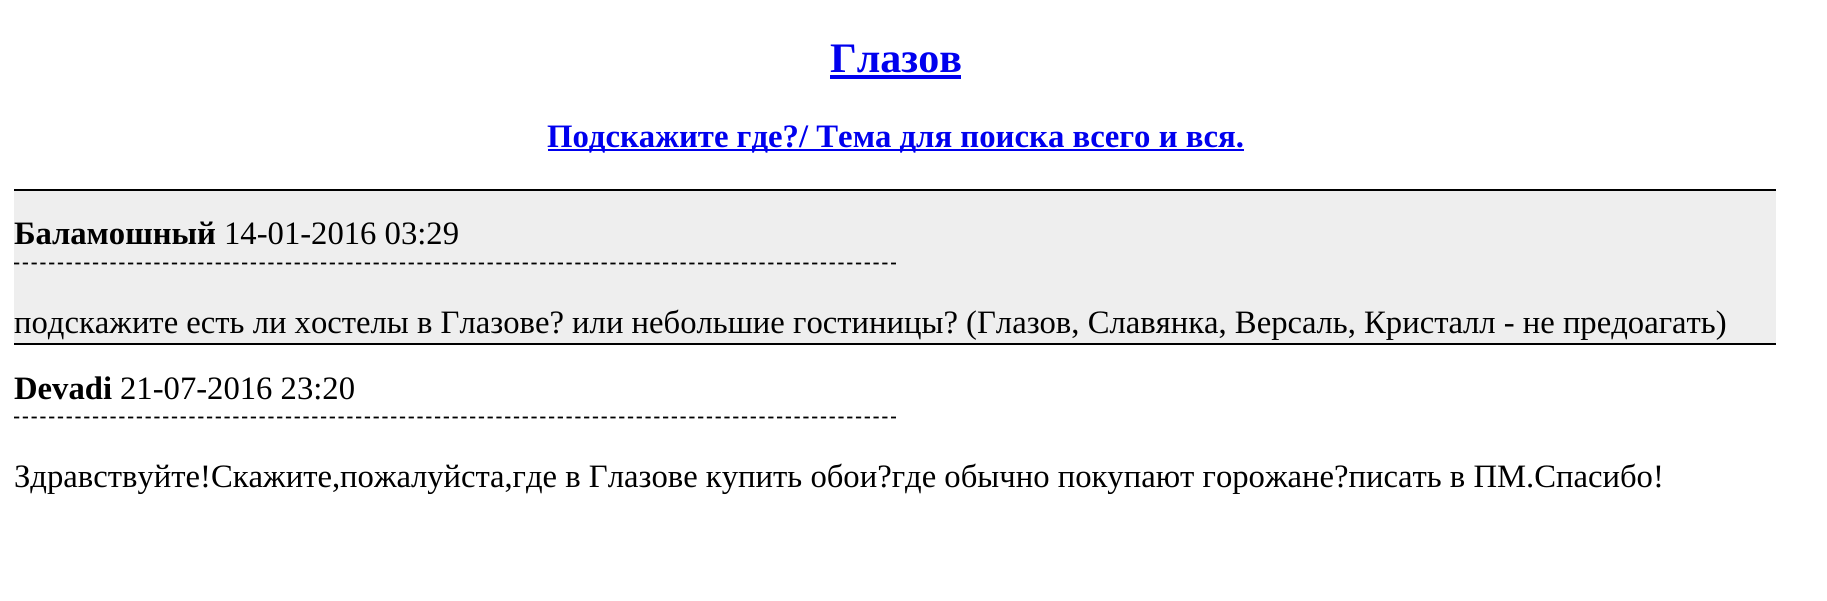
import math
import cairo



def draw(context):
    context.set_source_rgb(1, 1, 1)
    context.paint()
    context.set_source_rgb(0, 0, 238 / 255)
    context.rectangle(830, 75, 131, 4)
    context.fill()
    context.rectangle(548, 149, 696, 2)
    context.fill()
    context.set_source_rgb(238 / 255, 238 / 255, 238 / 255)
    context.rectangle(14, 191, 1762, 152)
    context.fill()
    context.set_source_rgb(0, 0, 0)
    context.rectangle(14, 189, 1762, 2)
    context.fill()
    context.new_path()
    context.move_to(14, 263.5)
    context.line_to(896, 263.5)
    context.set_line_width(1.8)
    context.set_dash([5.25, 3.52])
    context.stroke()
    context.rectangle(14, 343, 1762, 2)
    context.fill()
    context.new_path()
    context.move_to(14, 417.5)
    context.line_to(896, 417.5)
    context.stroke()
    context.select_font_face("Liberation Serif", cairo.FontSlant.NORMAL, cairo.FontWeight.BOLD)
    context.set_font_size(42)
    context.set_source_rgb(0, 0, 238 / 255)
    context.move_to(830, 72)
    context.show_text("Глазов")
    context.set_font_size(32.75)
    context.move_to(547, 147)
    context.show_text("Подскажите где?/ Тема для поиска всего и вся.")
    context.set_font_size(32.67)
    context.set_source_rgb(0, 0, 0)
    context.move_to(14, 244)
    context.show_text("Баламошный")
    context.select_font_face("Liberation Serif")
    context.move_to(224, 244)
    context.show_text("14-01-2016 03:29")
    context.move_to(14, 333)
    context.show_text("подскажите есть ли хостелы в Глазове? или небольшие гостиницы? (Глазов, Славянка, Версаль, Кристалл - не предоагать)")
    context.select_font_face("Liberation Serif", cairo.FontSlant.NORMAL, cairo.FontWeight.BOLD)
    context.move_to(14, 399)
    context.show_text("Devadi")
    context.select_font_face("Liberation Serif")
    context.move_to(120, 399)
    context.show_text("21-07-2016 23:20")
    context.move_to(14, 487)
    context.show_text("Здравствуйте!Скажите,пожалуйста,где в Глазове купить обои?где обычно покупают горожане?писать в ПМ.Спасибо!")


surface = cairo.ImageSurface(cairo.Format.RGB24, 1827, 601)
context = cairo.Context(surface)
options = cairo.FontOptions()
options.set_hint_metrics(cairo.HintMetrics.OFF)
options.set_hint_style(cairo.HintStyle.NONE)
context.set_font_options(options)
context.set_miter_limit(4)
draw(context)
surface.write_to_png("out.png")
